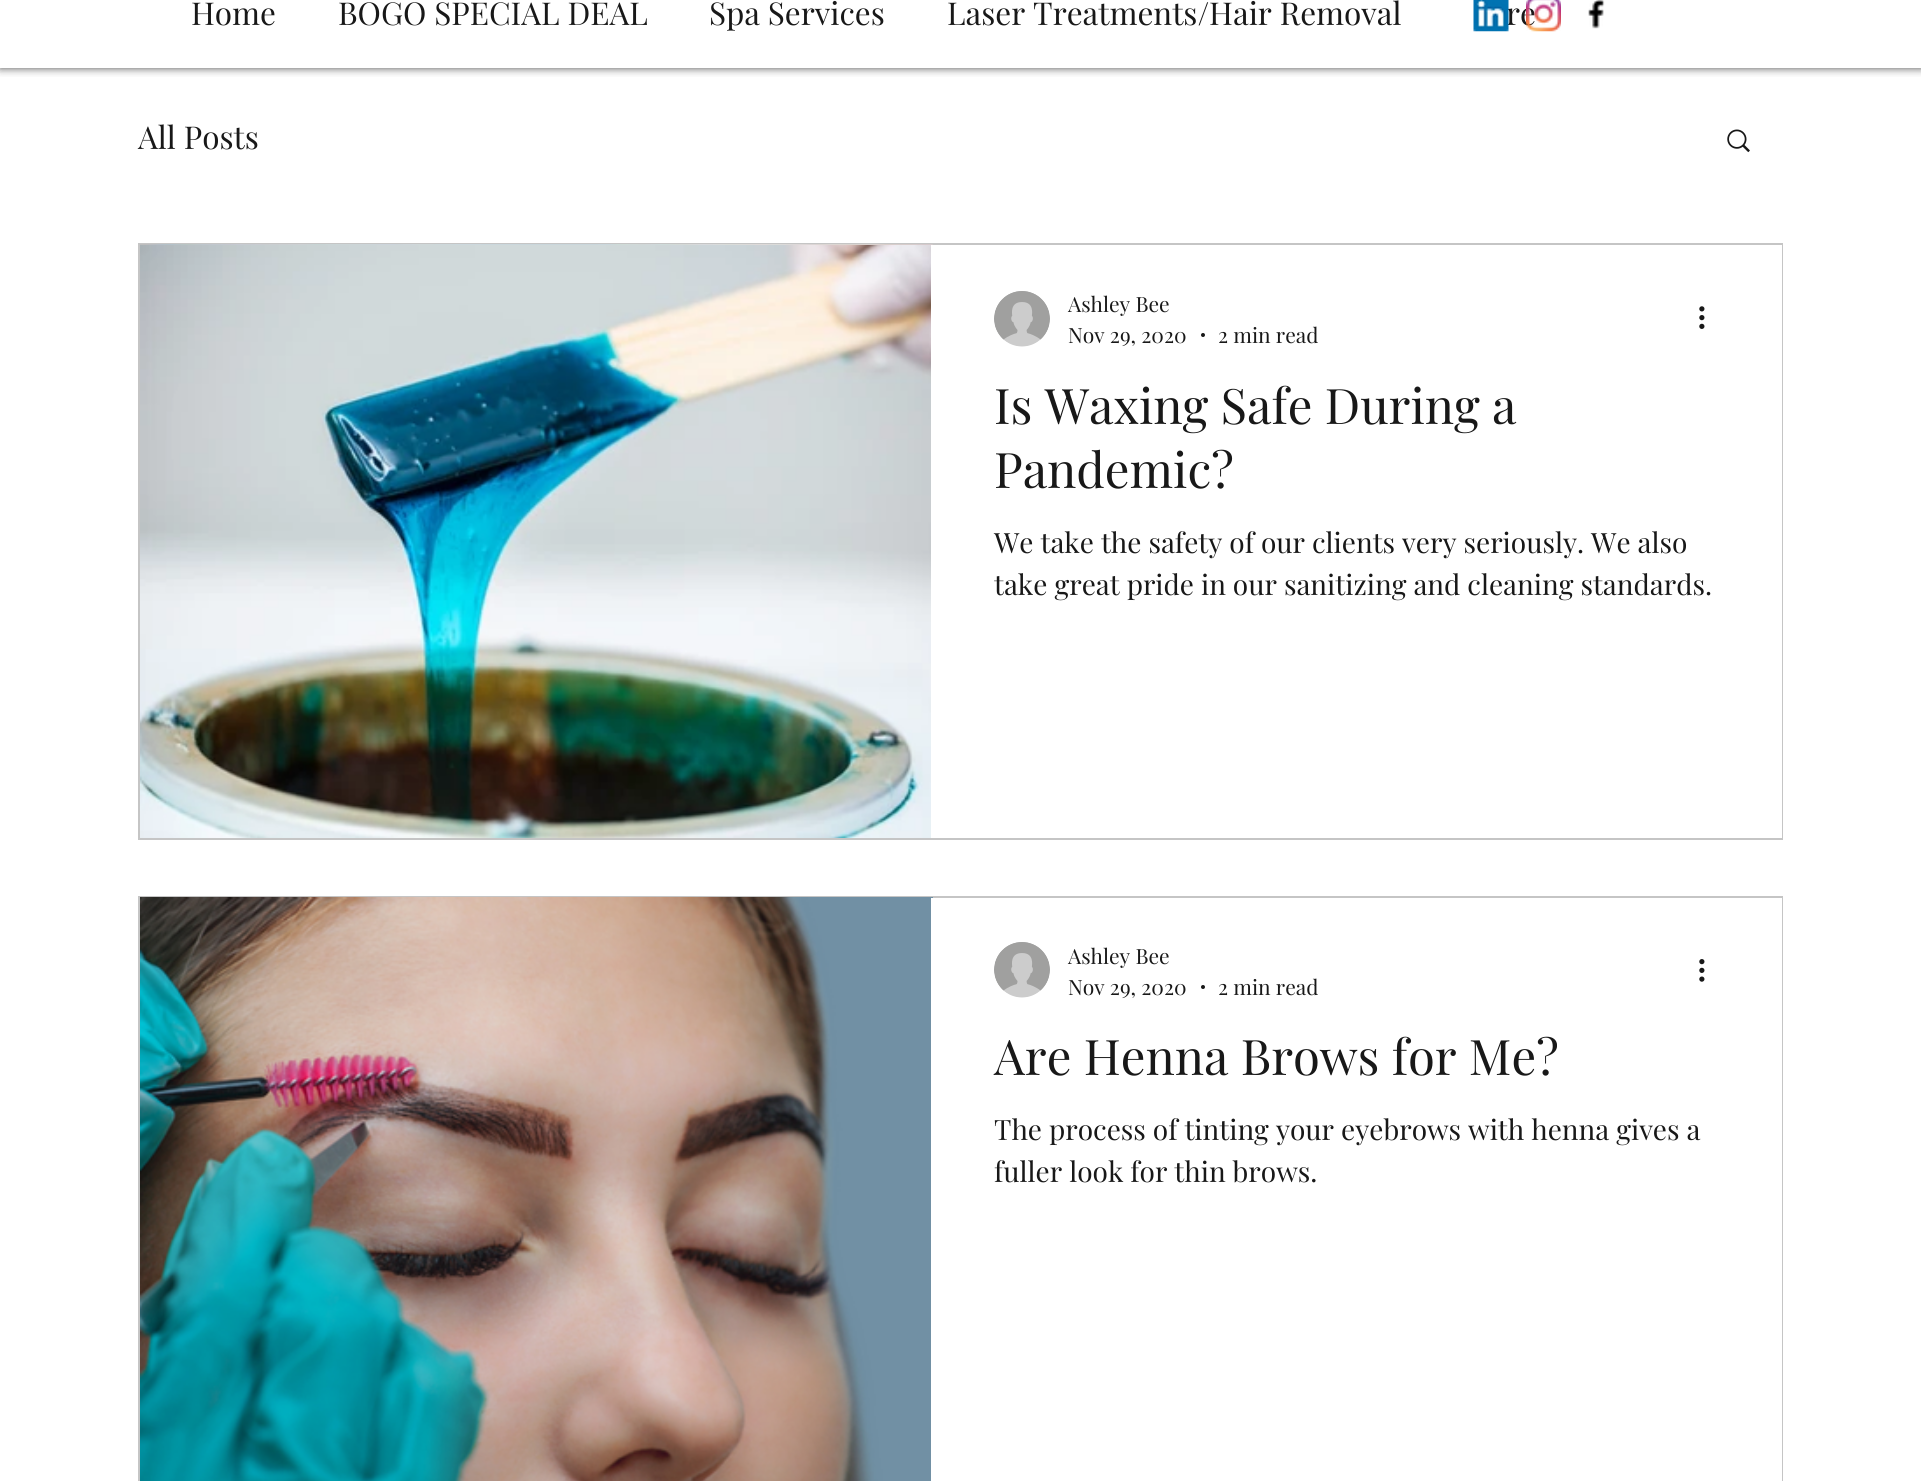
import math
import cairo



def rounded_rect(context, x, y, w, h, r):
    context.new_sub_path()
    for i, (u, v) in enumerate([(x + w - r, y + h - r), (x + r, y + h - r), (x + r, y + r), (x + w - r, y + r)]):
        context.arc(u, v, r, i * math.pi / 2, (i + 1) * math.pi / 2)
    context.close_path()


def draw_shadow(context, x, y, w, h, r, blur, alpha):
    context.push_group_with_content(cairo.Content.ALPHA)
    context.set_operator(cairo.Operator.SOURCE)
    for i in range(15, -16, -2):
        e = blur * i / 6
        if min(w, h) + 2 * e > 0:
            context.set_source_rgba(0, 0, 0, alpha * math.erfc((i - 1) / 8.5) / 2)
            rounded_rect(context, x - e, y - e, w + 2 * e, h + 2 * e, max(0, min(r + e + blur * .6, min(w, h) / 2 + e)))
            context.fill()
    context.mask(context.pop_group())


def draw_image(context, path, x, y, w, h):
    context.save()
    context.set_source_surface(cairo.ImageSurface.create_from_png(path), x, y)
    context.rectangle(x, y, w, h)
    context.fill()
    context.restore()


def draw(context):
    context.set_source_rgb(1, 1, 1)
    context.paint()
    context.save()
    context.rectangle(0, 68, 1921, 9)
    context.clip()
    context.set_source_rgb(0, 0, 0)
    draw_shadow(context, 0, -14, 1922, 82, 0, 4.5, 0.7)
    context.restore()
    draw_image(context, "images/3.png", 1588, 0, 17, 29)
    draw_image(context, "images/4.png", 1727, 129, 23, 24)
    context.rectangle(139, 244, 1643, 595)
    context.set_source_rgb(197 / 255, 197 / 255, 197 / 255)
    context.stroke()
    draw_image(context, "images/5.png", 140, 244, 793, 1)
    draw_image(context, "images/6.png", 140, 245, 791, 593)
    context.set_source_rgb(1, 1, 1)
    context.rectangle(1781, 245, 1, 593)
    context.fill()
    draw_image(context, "images/7.png", 994, 291, 56, 56)
    context.set_source_rgb(24 / 255, 24 / 255, 24 / 255)
    context.arc(1203, 335, 2, 0, 2 * math.pi)
    context.fill()
    draw_image(context, "images/8.png", 1699, 306, 6, 23)
    context.rectangle(139, 897, 1643, 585)
    context.set_source_rgb(197 / 255, 197 / 255, 197 / 255)
    context.stroke()
    draw_image(context, "images/9.png", 140, 897, 793, 584)
    context.set_source_rgb(1, 1, 1)
    context.rectangle(931, 898, 851, 583)
    context.fill()
    draw_image(context, "images/7.png", 994, 942, 56, 56)
    context.set_source_rgb(24 / 255, 24 / 255, 24 / 255)
    context.arc(1203, 987, 2, 0, 2 * math.pi)
    context.fill()
    draw_image(context, "images/10.png", 1699, 959, 6, 23)
    context.select_font_face("Playfair Display")
    context.set_font_size(31.5)
    context.move_to(191, 25)
    context.show_text("Home")
    context.move_to(338, 25)
    context.show_text("BOGO SPECIAL DEAL")
    context.move_to(709, 25)
    context.show_text("Spa Services")
    context.move_to(947, 25)
    context.show_text("Laser Treatments/Hair Removal")
    context.move_to(1506, 25)
    context.show_text("re")
    draw_image(context, "images/1.png", 1473, 0, 36, 32)
    draw_image(context, "images/2.png", 1526, 0, 35, 32)
    context.move_to(138, 149)
    context.show_text("All Posts")
    context.set_font_size(21)
    context.move_to(1068, 312)
    context.show_text("Ashley Bee")
    context.move_to(1068, 343)
    context.show_text("Nov 29, 2020")
    context.move_to(1218, 343)
    context.show_text("2 min read")
    context.set_font_size(49)
    context.move_to(994, 424)
    context.show_text("Is Waxing Safe During a")
    context.move_to(994, 488)
    context.show_text("Pandemic?")
    context.set_font_size(28)
    context.move_to(994, 553)
    context.show_text("We take the safety of our clients very seriously. We also")
    context.move_to(994, 595)
    context.show_text("take great pride in our sanitizing and cleaning standards.")
    context.set_font_size(21)
    context.move_to(1068, 964)
    context.show_text("Ashley Bee")
    context.move_to(1068, 995)
    context.show_text("Nov 29, 2020")
    context.move_to(1218, 995)
    context.show_text("2 min read")
    context.set_font_size(49)
    context.move_to(994, 1075)
    context.show_text("Are Henna Brows for Me?")
    context.set_font_size(28)
    context.move_to(994, 1140)
    context.show_text("The process of tinting your eyebrows with henna gives a")
    context.move_to(994, 1182)
    context.show_text("fuller look for thin brows.")


surface = cairo.ImageSurface(cairo.Format.RGB24, 1921, 1481)
context = cairo.Context(surface)
options = cairo.FontOptions()
options.set_hint_metrics(cairo.HintMetrics.OFF)
options.set_hint_style(cairo.HintStyle.NONE)
context.set_font_options(options)
context.set_miter_limit(4)
draw(context)
surface.write_to_png("out.png")
